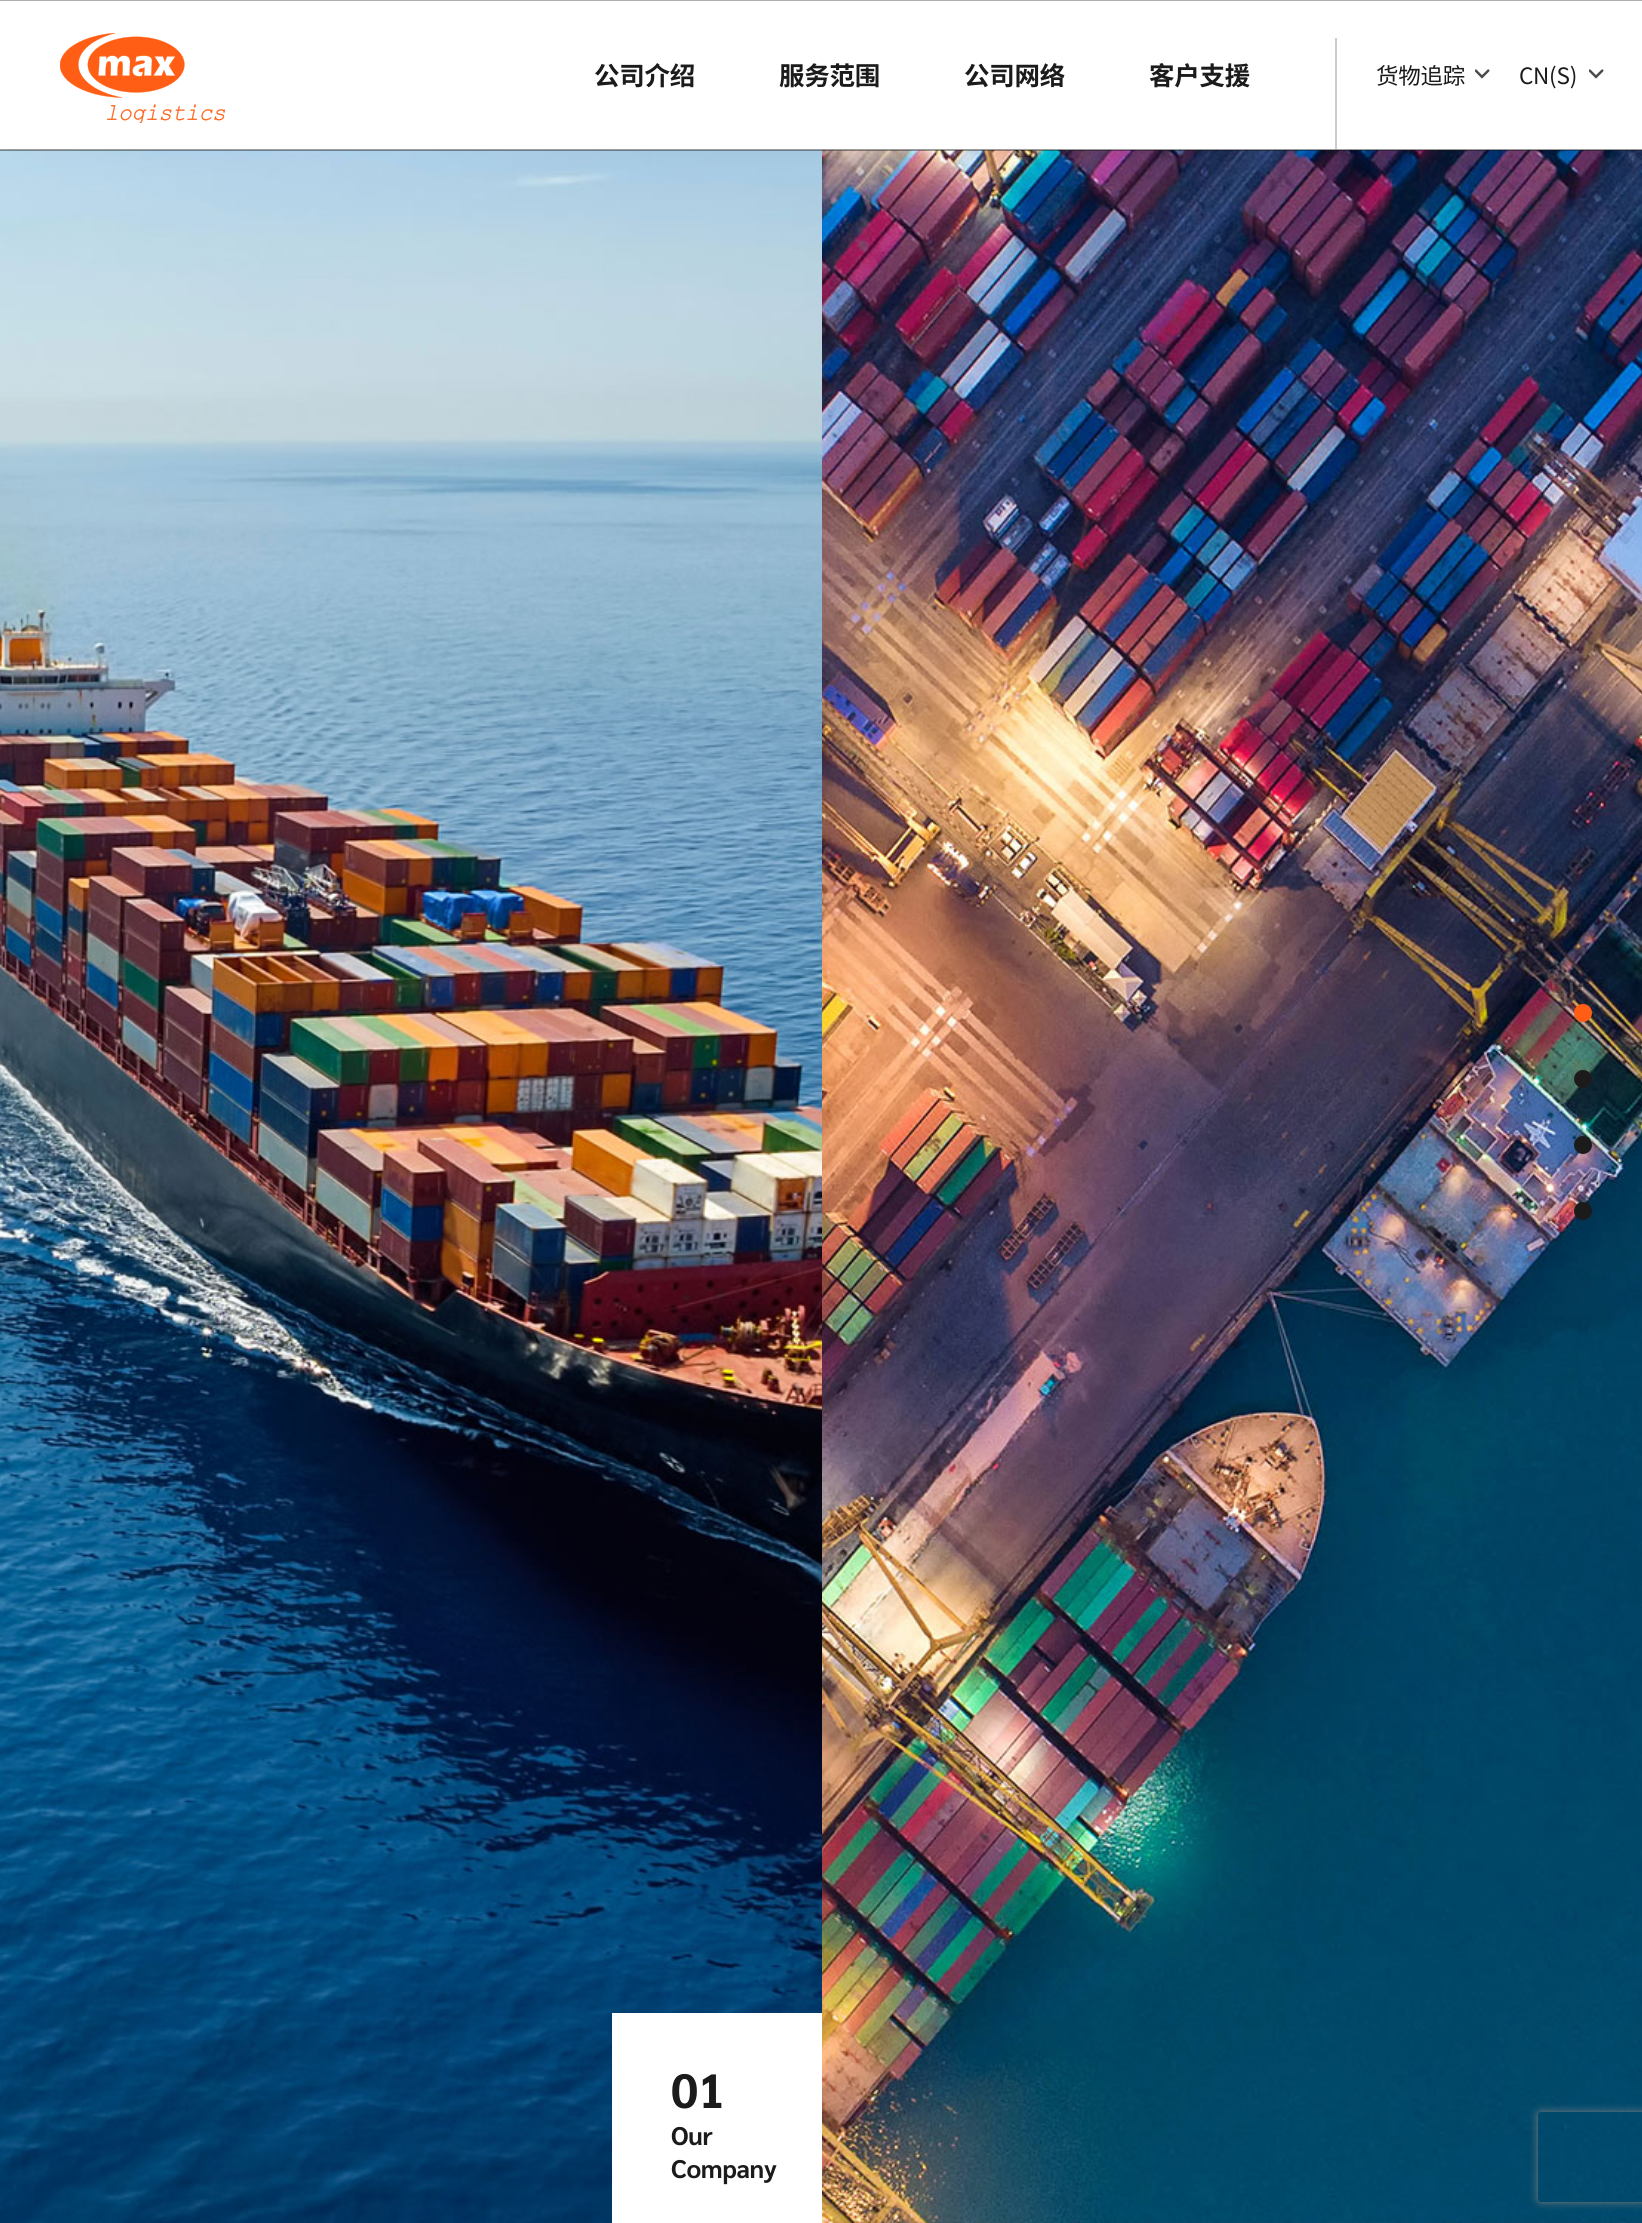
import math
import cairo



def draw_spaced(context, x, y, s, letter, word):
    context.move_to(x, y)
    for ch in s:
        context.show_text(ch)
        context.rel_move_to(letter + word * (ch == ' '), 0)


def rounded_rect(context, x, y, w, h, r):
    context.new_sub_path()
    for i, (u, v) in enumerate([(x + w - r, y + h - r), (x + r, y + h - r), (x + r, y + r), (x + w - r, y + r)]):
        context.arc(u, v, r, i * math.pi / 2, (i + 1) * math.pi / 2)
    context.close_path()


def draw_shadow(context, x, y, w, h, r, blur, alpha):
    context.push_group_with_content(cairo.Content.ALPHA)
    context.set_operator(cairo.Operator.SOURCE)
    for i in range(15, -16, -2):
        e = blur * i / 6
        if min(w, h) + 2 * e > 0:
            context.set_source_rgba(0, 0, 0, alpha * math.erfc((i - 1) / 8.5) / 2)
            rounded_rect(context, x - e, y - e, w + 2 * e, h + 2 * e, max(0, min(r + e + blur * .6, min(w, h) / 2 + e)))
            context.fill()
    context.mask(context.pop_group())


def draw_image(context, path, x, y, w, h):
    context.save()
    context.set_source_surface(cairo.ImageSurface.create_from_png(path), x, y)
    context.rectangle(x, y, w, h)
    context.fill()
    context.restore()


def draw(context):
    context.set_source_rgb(1, 1, 1)
    context.paint()
    context.set_source_rgb(175 / 255, 175 / 255, 175 / 255)
    context.rectangle(0, 0, 1642, 1)
    context.fill()
    draw_image(context, "images/3.png", 0, 150, 822, 2073)
    draw_image(context, "images/4.png", 822, 150, 820, 2073)
    context.set_source_rgba(10 / 255, 10 / 255, 10 / 255, 0.4)
    context.rectangle(0, 149, 1642, 2)
    context.fill()
    draw_image(context, "images/1.png", 60, 33, 165, 90)
    context.set_source_rgb(204 / 255, 204 / 255, 204 / 255)
    context.rectangle(1335, 38, 2, 111)
    context.fill()
    draw_image(context, "images/2.png", 1475, 69, 15, 10)
    draw_image(context, "images/2.png", 1589, 69, 15, 10)
    context.set_source_rgb(1, 1, 1)
    context.rectangle(612, 2013, 210, 210)
    context.fill()
    context.set_source_rgb(1, 94 / 255, 20 / 255)
    context.arc(1583, 1013, 9, 0, 2 * math.pi)
    context.fill()
    context.set_source_rgb(27 / 255, 27 / 255, 27 / 255)
    context.arc(1583, 1079, 9, 0, 2 * math.pi)
    context.fill()
    context.arc(1583, 1145, 9, 0, 2 * math.pi)
    context.fill()
    context.arc(1583, 1211, 9, 0, 2 * math.pi)
    context.fill()
    context.save()
    context.set_fill_rule(cairo.FillRule.EVEN_ODD)
    context.new_path()
    context.move_to(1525, 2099)
    context.line_to(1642, 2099)
    context.line_to(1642, 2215)
    context.line_to(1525, 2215)
    context.close_path()
    context.move_to(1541, 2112)
    context.line_to(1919, 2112)
    context.curve_to(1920.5, 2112, 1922, 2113.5, 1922, 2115)
    context.line_to(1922, 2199)
    context.curve_to(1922, 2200.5, 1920.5, 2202, 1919, 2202)
    context.line_to(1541, 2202)
    context.curve_to(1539.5, 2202, 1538, 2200.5, 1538, 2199)
    context.line_to(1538, 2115)
    context.curve_to(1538, 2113.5, 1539.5, 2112, 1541, 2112)
    context.close_path()
    context.clip()
    context.set_source_rgb(128 / 255, 128 / 255, 128 / 255)
    draw_shadow(context, 1538, 2112, 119, 90, 3, 4, 1)
    context.restore()
    context.select_font_face("Noto Sans SC", cairo.FontSlant.NORMAL, cairo.FontWeight.BOLD)
    context.set_font_size(25.5)
    draw_spaced(context, 594, 85, "公司介绍", -0.25, 0)
    draw_spaced(context, 779, 85, "服务范围", -0.25, 0)
    draw_spaced(context, 964, 85, "公司网络", -0.25, 0)
    draw_spaced(context, 1149, 85, "客户支援", -0.25, 0)
    context.select_font_face("Noto Sans SC")
    context.set_font_size(22.5)
    draw_spaced(context, 1376, 84, "货物追踪", -0.25, 0)
    draw_spaced(context, 1519, 84, "CN(S)", -0.25, 0)
    context.select_font_face("Sarabun", cairo.FontSlant.NORMAL, cairo.FontWeight.BOLD)
    context.set_font_size(48)
    context.move_to(671, 2108)
    context.show_text("01")
    context.set_font_size(25.5)
    draw_spaced(context, 671, 2145, "Our", -0.25, 0)
    draw_spaced(context, 671, 2178, "Company", -0.25, 0)


surface = cairo.ImageSurface(cairo.Format.RGB24, 1642, 2223)
context = cairo.Context(surface)
options = cairo.FontOptions()
options.set_hint_metrics(cairo.HintMetrics.OFF)
options.set_hint_style(cairo.HintStyle.NONE)
context.set_font_options(options)
context.set_miter_limit(4)
draw(context)
surface.write_to_png("out.png")
